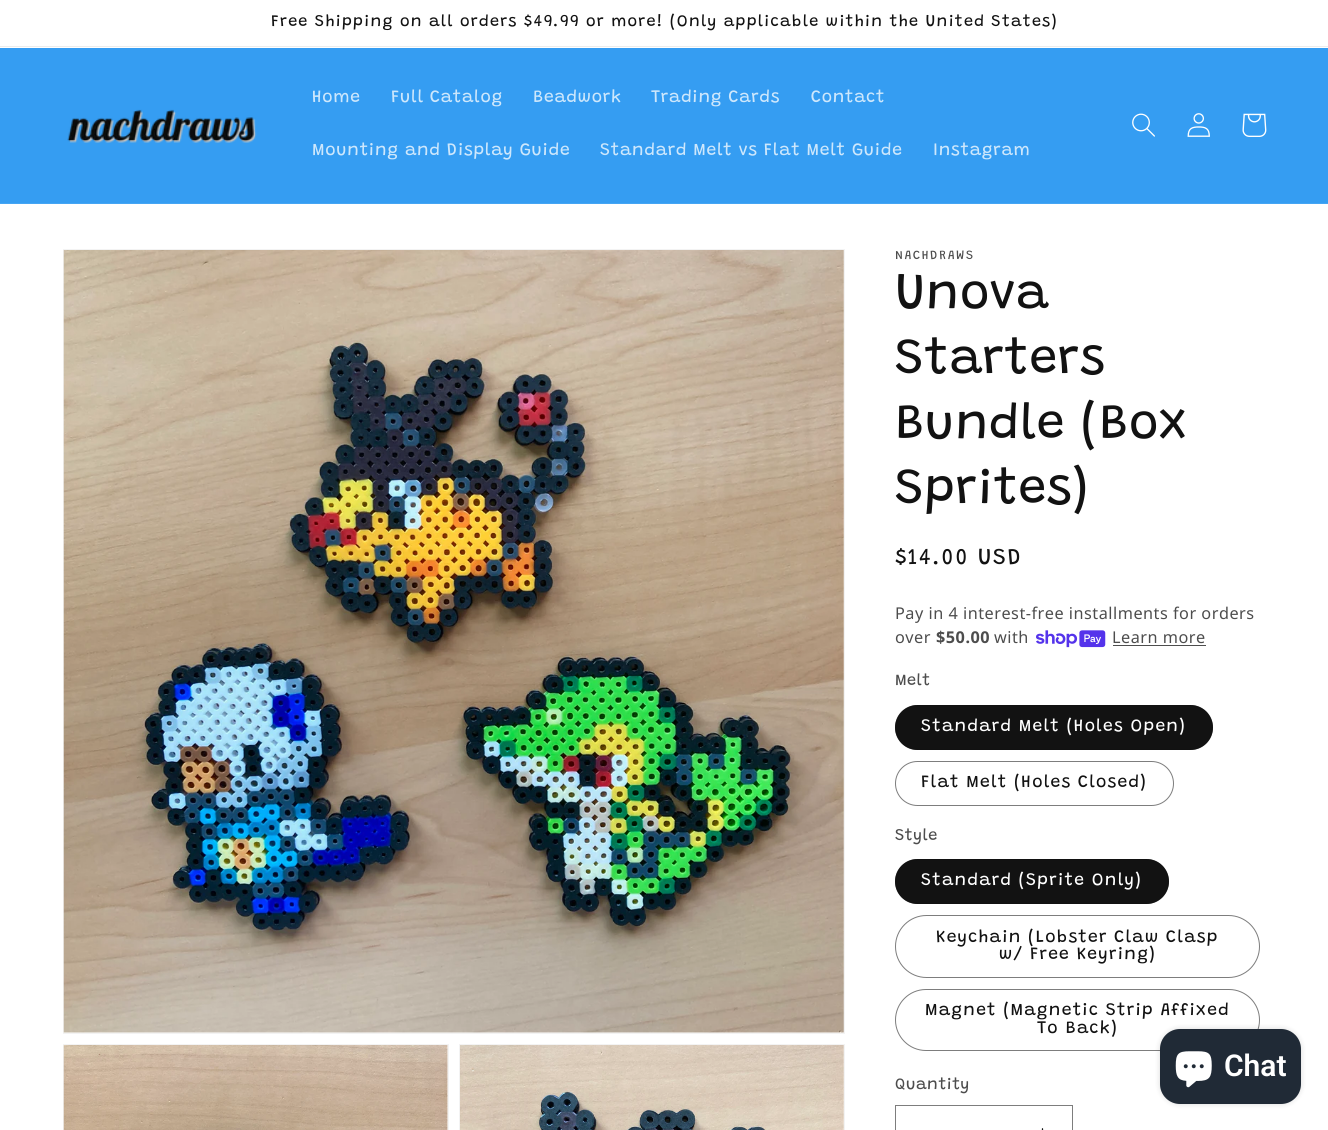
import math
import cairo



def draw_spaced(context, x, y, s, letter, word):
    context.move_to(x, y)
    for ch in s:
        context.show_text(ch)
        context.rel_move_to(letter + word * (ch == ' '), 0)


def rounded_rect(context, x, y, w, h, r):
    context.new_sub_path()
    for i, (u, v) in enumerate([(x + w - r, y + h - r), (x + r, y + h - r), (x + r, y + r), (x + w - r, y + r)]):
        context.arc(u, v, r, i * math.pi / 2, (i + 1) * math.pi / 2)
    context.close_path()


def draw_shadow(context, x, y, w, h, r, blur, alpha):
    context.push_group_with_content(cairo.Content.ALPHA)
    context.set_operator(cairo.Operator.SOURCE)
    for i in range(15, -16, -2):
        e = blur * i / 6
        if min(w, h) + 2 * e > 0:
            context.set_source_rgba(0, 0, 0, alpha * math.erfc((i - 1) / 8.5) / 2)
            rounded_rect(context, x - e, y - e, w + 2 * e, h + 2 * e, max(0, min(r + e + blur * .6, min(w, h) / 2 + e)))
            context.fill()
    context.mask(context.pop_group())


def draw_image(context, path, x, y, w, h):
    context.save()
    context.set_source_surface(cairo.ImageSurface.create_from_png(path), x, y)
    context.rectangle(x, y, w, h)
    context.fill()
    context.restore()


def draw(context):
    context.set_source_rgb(1, 1, 1)
    context.paint()
    context.set_source_rgb(236 / 255, 236 / 255, 236 / 255)
    context.rectangle(0, 46, 1328, 1)
    context.fill()
    context.set_source_rgb(53 / 255, 157 / 255, 242 / 255)
    context.rectangle(0, 48, 1328, 155)
    context.fill()
    context.set_source_rgb(69 / 255, 165 / 255, 243 / 255)
    context.rectangle(0, 203, 1328, 1)
    context.fill()
    draw_image(context, "images/1.png", 67, 109, 190, 34)
    draw_image(context, "images/2.png", 1132, 113, 23, 24)
    draw_image(context, "images/3.png", 1187, 113, 23, 24)
    draw_image(context, "images/4.png", 1242, 113, 25, 24)
    context.rectangle(63.5, 249.5, 781, 784)
    context.set_source_rgb(243 / 255, 243 / 255, 243 / 255)
    context.set_line_width(1)
    context.stroke()
    draw_image(context, "images/5.png", 63, 250, 781, 783)
    context.rectangle(63.5, 1044.5, 385, 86)
    context.stroke()
    draw_image(context, "images/6.png", 63, 1045, 385, 85)
    context.rectangle(459.5, 1044.5, 385, 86)
    context.stroke()
    draw_image(context, "images/7.png", 460, 1045, 384, 85)
    draw_image(context, "images/8.png", 1036, 630, 70, 18)
    context.set_source_rgb(77 / 255, 77 / 255, 77 / 255)
    context.rectangle(1113, 645, 93, 1)
    context.fill()
    context.set_source_rgb(18 / 255, 18 / 255, 18 / 255)
    rounded_rect(context, 895, 705, 318, 45, 22.5)
    context.fill()
    rounded_rect(context, 895.5, 705.5, 317, 44, 22)
    context.set_source_rgba(18 / 255, 18 / 255, 18 / 255, 0.55)
    context.stroke()
    rounded_rect(context, 895.5, 761.5, 278, 44, 22)
    context.set_source_rgb(125 / 255, 125 / 255, 125 / 255)
    context.stroke()
    context.set_source_rgb(18 / 255, 18 / 255, 18 / 255)
    rounded_rect(context, 895, 859, 274, 45, 22.5)
    context.fill()
    rounded_rect(context, 895.5, 859.5, 273, 44, 22)
    context.set_source_rgba(18 / 255, 18 / 255, 18 / 255, 0.55)
    context.stroke()
    rounded_rect(context, 895.5, 915.5, 364, 62, 31)
    context.set_source_rgb(125 / 255, 125 / 255, 125 / 255)
    context.stroke()
    rounded_rect(context, 895.5, 989.5, 364, 61, 30.5)
    context.stroke()
    draw_image(context, "images/9.png", 1041, 1128, 3, 2)
    context.rectangle(895.5, 1105.5, 177, 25)
    context.stroke()
    context.set_source_rgb(0, 0, 0)
    draw_shadow(context, 1160, 1029, 141, 75, 20, 3, 0.15)
    context.set_source_rgb(32 / 255, 42 / 255, 54 / 255)
    rounded_rect(context, 1160, 1029, 141, 75, 20)
    context.fill()
    draw_image(context, "images/10.png", 1175, 1051, 37, 37)
    context.select_font_face("Grandstander")
    context.set_font_size(16.25)
    context.set_source_rgb(18 / 255, 18 / 255, 18 / 255)
    draw_spaced(context, 271, 26, "Free Shipping on all orders $49.99 or more! (Only applicable within the United States)", 1.25, 0)
    context.set_font_size(17.5)
    context.set_source_rgb(205 / 255, 231 / 255, 252 / 255)
    draw_spaced(context, 312, 102, "Home", 0.75, 0)
    draw_spaced(context, 391, 102, "Full Catalog", 0.75, 0)
    draw_spaced(context, 533, 102, "Beadwork", 0.75, 0)
    draw_spaced(context, 651, 102, "Trading Cards", 0.75, 0)
    draw_spaced(context, 811, 102, "Contact", 0.75, 0)
    draw_spaced(context, 312, 155, "Mounting and Display Guide", 0.75, 0)
    draw_spaced(context, 600, 155, "Standard Melt vs Flat Melt Guide", 0.75, 0)
    draw_spaced(context, 933, 155, "Instagram", 0.75, 0)
    context.set_font_size(12.5)
    context.set_source_rgb(77 / 255, 77 / 255, 77 / 255)
    draw_spaced(context, 895, 259, "NACHDRAWS", 1.6, 0)
    context.set_font_size(50)
    context.set_source_rgb(18 / 255, 18 / 255, 18 / 255)
    draw_spaced(context, 895, 308, "Unova", 0.75, 0)
    draw_spaced(context, 895, 373, "Starters", 0.75, 0)
    draw_spaced(context, 895, 438, "Bundle (Box", 0.75, 0)
    draw_spaced(context, 895, 503, "Sprites)", 0.75, 0)
    context.set_font_size(22.5)
    draw_spaced(context, 895, 564, "$14.00 USD", 1.6, 0)
    context.select_font_face("Noto Sans")
    context.set_font_size(16.25)
    context.set_source_rgb(77 / 255, 77 / 255, 77 / 255)
    draw_spaced(context, 895, 619, "Pay in 4 interest-free installments for orders", 0.5, 0)
    draw_spaced(context, 895, 643, "over", 0.5, 0)
    context.select_font_face("Noto Sans", cairo.FontSlant.NORMAL, cairo.FontWeight.BOLD)
    draw_spaced(context, 936, 643, "$50.00", 0.5, 0)
    context.select_font_face("Noto Sans")
    draw_spaced(context, 994, 643, "with", 0.5, 0)
    draw_spaced(context, 1112, 643, "Learn more", 0.5, 0)
    context.select_font_face("Grandstander")
    draw_spaced(context, 895, 685, "Melt", 0.5, 0)
    context.set_font_size(17.5)
    context.set_source_rgb(1, 1, 1)
    draw_spaced(context, 921, 731, "Standard Melt (Holes Open)", 1.25, 0)
    context.set_source_rgb(18 / 255, 18 / 255, 18 / 255)
    draw_spaced(context, 921, 787, "Flat Melt (Holes Closed)", 1.25, 0)
    context.set_font_size(16.25)
    context.set_source_rgb(77 / 255, 77 / 255, 77 / 255)
    draw_spaced(context, 895, 840, "Style", 0.5, 0)
    context.set_font_size(17.5)
    context.set_source_rgb(1, 1, 1)
    draw_spaced(context, 921, 885, "Standard (Sprite Only)", 1.25, 0)
    context.set_source_rgb(18 / 255, 18 / 255, 18 / 255)
    draw_spaced(context, 936, 942, "Keychain (Lobster Claw Clasp", 1.25, 0)
    draw_spaced(context, 999, 959, "w/ Free Keyring)", 1.25, 0)
    draw_spaced(context, 925, 1015, "Magnet (Magnetic Strip Affixed", 1.25, 0)
    draw_spaced(context, 1037, 1033, "To Back)", 1.25, 0)
    context.set_font_size(16.25)
    context.set_source_rgb(77 / 255, 77 / 255, 77 / 255)
    draw_spaced(context, 895, 1089, "Quantity", 0.5, 0)
    context.select_font_face("Roboto SemiBold")
    context.set_font_size(30)
    context.set_source_rgb(1, 1, 1)
    context.move_to(1224, 1076)
    context.show_text("Chat")


surface = cairo.ImageSurface(cairo.Format.RGB24, 1328, 1130)
context = cairo.Context(surface)
options = cairo.FontOptions()
options.set_hint_metrics(cairo.HintMetrics.OFF)
options.set_hint_style(cairo.HintStyle.NONE)
context.set_font_options(options)
context.set_miter_limit(4)
draw(context)
surface.write_to_png("out.png")
